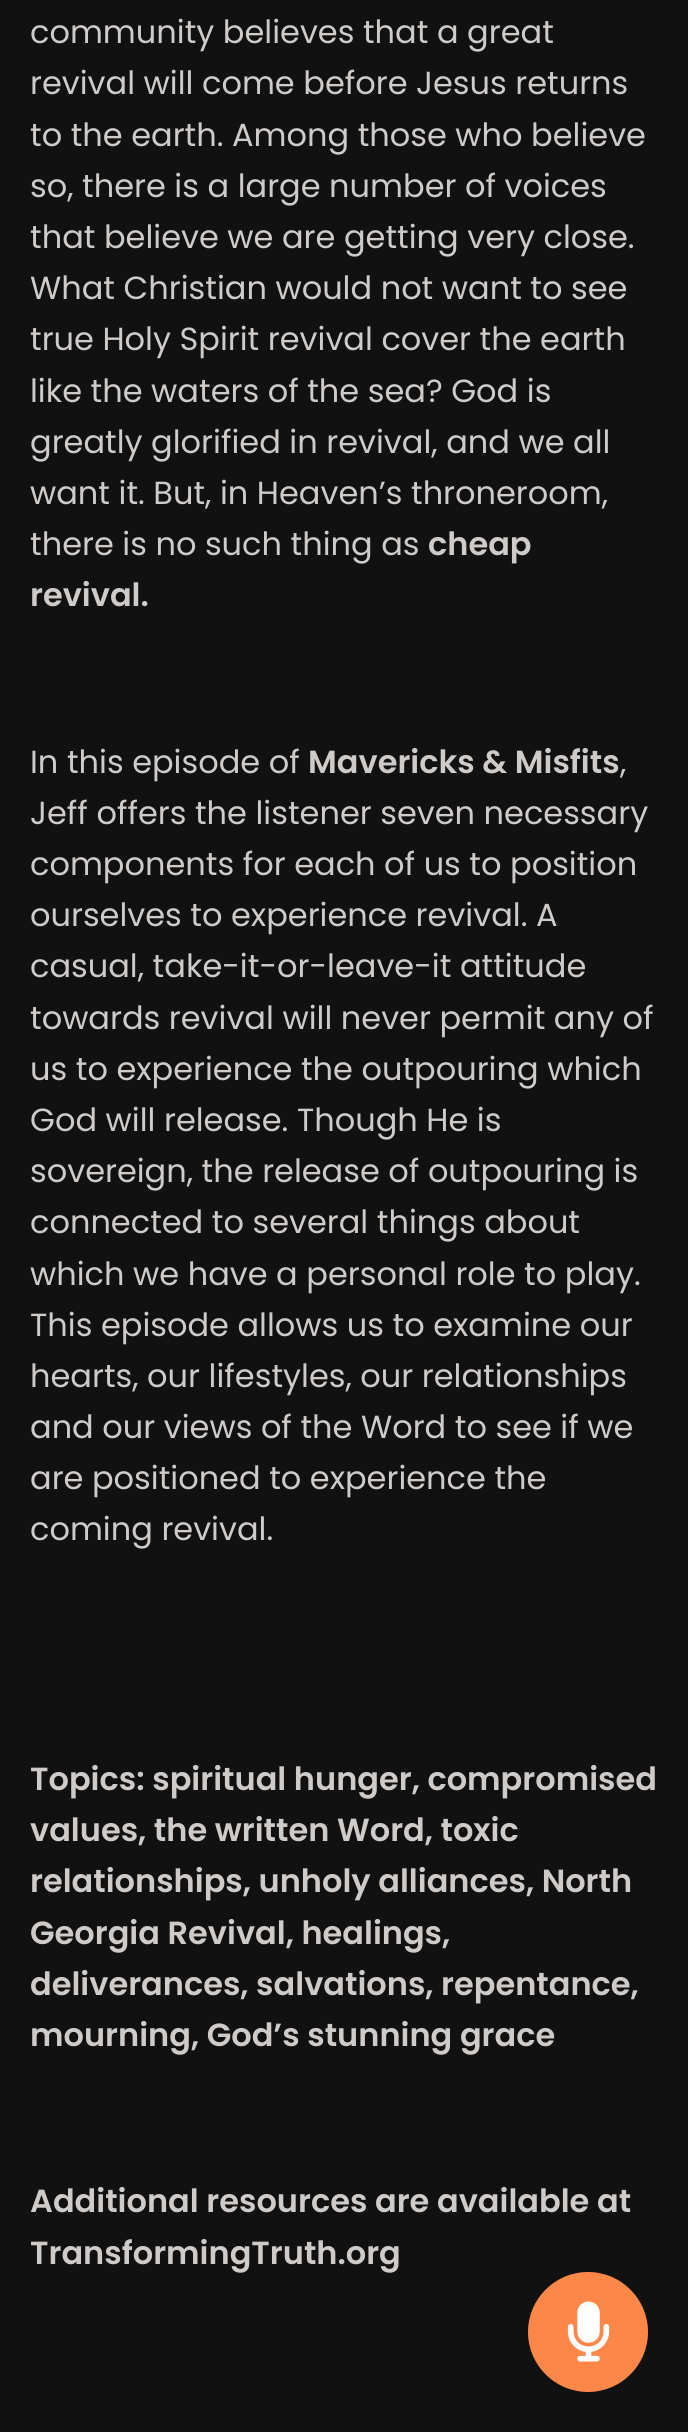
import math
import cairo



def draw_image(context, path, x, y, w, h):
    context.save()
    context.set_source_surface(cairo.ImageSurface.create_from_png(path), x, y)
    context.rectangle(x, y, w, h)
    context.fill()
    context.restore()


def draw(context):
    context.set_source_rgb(17 / 255, 17 / 255, 17 / 255)
    context.paint()
    context.set_source_rgb(252 / 255, 135 / 255, 73 / 255)
    context.arc(588, 2332, 59, 0, 2 * math.pi)
    context.fill_preserve()
    context.stroke()
    draw_image(context, "images/1.png", 567, 2301, 43, 61)
    context.select_font_face("Poppins")
    context.set_font_size(32)
    context.set_source_rgb(207 / 255, 203 / 255, 201 / 255)
    context.move_to(30, 43)
    context.show_text("community believes that a great")
    context.move_to(30, 94)
    context.show_text("revival will come before Jesus returns")
    context.move_to(30, 146)
    context.show_text("to the earth. Among those who believe")
    context.move_to(30, 197)
    context.show_text("so, there is a large number of voices")
    context.move_to(30, 248)
    context.show_text("that believe we are getting very close.")
    context.move_to(30, 299)
    context.show_text("What Christian would not want to see")
    context.move_to(30, 350)
    context.show_text("true Holy Spirit revival cover the earth")
    context.move_to(30, 402)
    context.show_text("like the waters of the sea? God is")
    context.move_to(30, 453)
    context.show_text("greatly glorified in revival, and we all")
    context.move_to(30, 504)
    context.show_text("want it. But, in Heaven’s throneroom,")
    context.move_to(30, 555)
    context.show_text("there is no such thing as")
    context.select_font_face("Poppins SemiBold")
    context.move_to(428, 555)
    context.show_text("cheap")
    context.move_to(30, 606)
    context.show_text("revival.")
    context.select_font_face("Poppins")
    context.move_to(30, 773)
    context.show_text("In this episode of")
    context.select_font_face("Poppins SemiBold")
    context.move_to(308, 773)
    context.show_text("Mavericks & Misfits")
    context.select_font_face("Poppins")
    context.move_to(620, 773)
    context.show_text(",")
    context.move_to(30, 824)
    context.show_text("Jeff offers the listener seven necessary")
    context.move_to(30, 875)
    context.show_text("components for each of us to position")
    context.move_to(30, 926)
    context.show_text("ourselves to experience revival. A")
    context.move_to(30, 977)
    context.show_text("casual, take-it-or-leave-it attitude")
    context.move_to(30, 1029)
    context.show_text("towards revival will never permit any of")
    context.move_to(30, 1080)
    context.show_text("us to experience the outpouring which")
    context.move_to(30, 1131)
    context.show_text("God will release. Though He is")
    context.move_to(30, 1182)
    context.show_text("sovereign, the release of outpouring is")
    context.move_to(30, 1233)
    context.show_text("connected to several things about")
    context.move_to(30, 1285)
    context.show_text("which we have a personal role to play.")
    context.move_to(30, 1336)
    context.show_text("This episode allows us to examine our")
    context.move_to(30, 1387)
    context.show_text("hearts, our lifestyles, our relationships")
    context.move_to(30, 1438)
    context.show_text("and our views of the Word to see if we")
    context.move_to(30, 1489)
    context.show_text("are positioned to experience the")
    context.move_to(30, 1540)
    context.show_text("coming revival.")
    context.select_font_face("Poppins SemiBold")
    context.move_to(30, 1790)
    context.show_text("Topics: spiritual hunger, compromised")
    context.move_to(30, 1841)
    context.show_text("values, the written Word, toxic")
    context.move_to(30, 1892)
    context.show_text("relationships, unholy alliances, North")
    context.move_to(30, 1944)
    context.show_text("Georgia Revival, healings,")
    context.move_to(30, 1995)
    context.show_text("deliverances, salvations, repentance,")
    context.move_to(30, 2046)
    context.show_text("mourning, God’s stunning grace")
    context.move_to(30, 2212)
    context.show_text("Additional resources are available at")
    context.move_to(30, 2264)
    context.show_text("TransformingTruth.org")


surface = cairo.ImageSurface(cairo.Format.RGB24, 688, 2432)
context = cairo.Context(surface)
options = cairo.FontOptions()
options.set_hint_metrics(cairo.HintMetrics.OFF)
options.set_hint_style(cairo.HintStyle.NONE)
context.set_font_options(options)
context.set_miter_limit(4)
draw(context)
surface.write_to_png("out.png")
